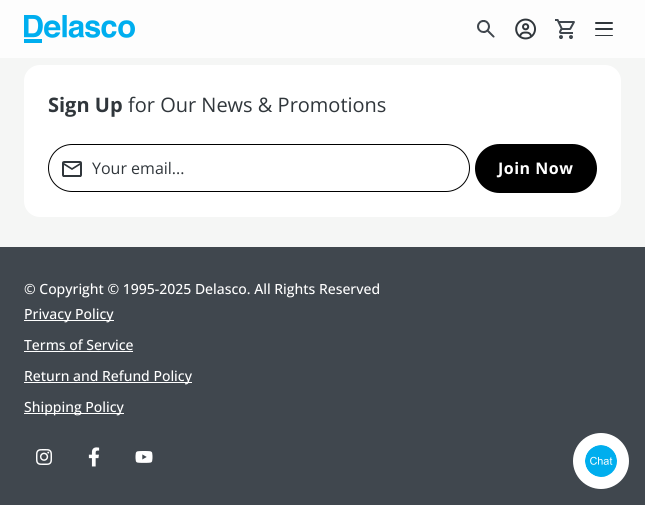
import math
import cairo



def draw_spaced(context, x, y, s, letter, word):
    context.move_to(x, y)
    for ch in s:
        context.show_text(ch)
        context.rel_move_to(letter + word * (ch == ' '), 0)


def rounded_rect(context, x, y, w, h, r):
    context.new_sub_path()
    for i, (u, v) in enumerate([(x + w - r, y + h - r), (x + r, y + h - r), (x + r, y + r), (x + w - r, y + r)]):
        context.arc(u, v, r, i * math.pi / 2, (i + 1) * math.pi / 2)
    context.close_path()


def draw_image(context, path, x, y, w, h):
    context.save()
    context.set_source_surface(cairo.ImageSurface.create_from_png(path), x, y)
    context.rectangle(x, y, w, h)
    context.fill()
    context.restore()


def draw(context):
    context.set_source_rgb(245 / 255, 246 / 255, 245 / 255)
    context.paint()
    context.set_source_rgb(253 / 255, 253 / 255, 253 / 255)
    context.rectangle(0, 0, 645, 58)
    context.fill()
    draw_image(context, "images/1.png", 24, 15, 111, 28)
    draw_image(context, "images/2.png", 477, 20, 18, 18)
    draw_image(context, "images/3.png", 515, 18, 21, 22)
    draw_image(context, "images/4.png", 555, 19, 20, 20)
    context.set_source_rgb(48 / 255, 54 / 255, 59 / 255)
    rounded_rect(context, 595, 22, 18, 2, 1)
    context.fill()
    rounded_rect(context, 595, 28, 18, 2, 1)
    context.fill()
    rounded_rect(context, 595, 35, 18, 1, 0.5)
    context.fill()
    context.set_source_rgb(1, 1, 1)
    rounded_rect(context, 24, 65, 597, 152, 16)
    context.fill()
    rounded_rect(context, 48.5, 144.5, 421, 47, 23.5)
    context.set_source_rgb(0, 0, 0)
    context.set_line_width(1)
    context.stroke()
    draw_image(context, "images/5.png", 62, 161, 20, 16)
    rounded_rect(context, 475, 144, 122, 49, 24.5)
    context.fill()
    context.set_source_rgb(64 / 255, 71 / 255, 78 / 255)
    context.rectangle(0, 247, 645, 258)
    context.fill()
    context.set_source_rgb(1, 1, 1)
    context.rectangle(24, 320, 90, 1)
    context.fill()
    context.rectangle(24, 351, 109, 1)
    context.fill()
    context.rectangle(24, 382, 168, 1)
    context.fill()
    context.rectangle(24, 413, 100, 1)
    context.fill()
    draw_image(context, "images/6.png", 36, 449, 16, 16)
    draw_image(context, "images/7.png", 88, 447, 12, 20)
    draw_image(context, "images/8.png", 135, 451, 18, 12)
    context.arc(601, 461, 28, 0, 2 * math.pi)
    context.fill()
    draw_image(context, "images/9.png", 585, 445, 32, 32)
    context.select_font_face("Open Sans", cairo.FontSlant.NORMAL, cairo.FontWeight.BOLD)
    context.set_font_size(20)
    context.set_source_rgb(48 / 255, 54 / 255, 59 / 255)
    context.move_to(48, 112)
    context.show_text("Sign Up")
    context.select_font_face("Open Sans")
    context.move_to(128, 112)
    context.show_text("for Our News & Promotions")
    context.set_font_size(16)
    context.move_to(92, 174)
    context.show_text("Your email...")
    context.select_font_face("Open Sans", cairo.FontSlant.NORMAL, cairo.FontWeight.BOLD)
    context.set_source_rgb(1, 1, 1)
    draw_spaced(context, 498, 174, "Join Now", 0.5, 0)
    context.select_font_face("Open Sans Medium")
    context.set_font_size(14)
    context.move_to(24, 294)
    context.show_text("© Copyright © 1995-2025 Delasco. All Rights Reserved")
    context.move_to(24, 319)
    context.show_text("Privacy Policy")
    context.move_to(24, 350)
    context.show_text("Terms of Service")
    context.move_to(24, 381)
    context.show_text("Return and Refund Policy")
    context.move_to(24, 412)
    context.show_text("Shipping Policy")


surface = cairo.ImageSurface(cairo.Format.RGB24, 645, 505)
context = cairo.Context(surface)
options = cairo.FontOptions()
options.set_hint_metrics(cairo.HintMetrics.OFF)
options.set_hint_style(cairo.HintStyle.NONE)
context.set_font_options(options)
context.set_miter_limit(4)
draw(context)
surface.write_to_png("out.png")
